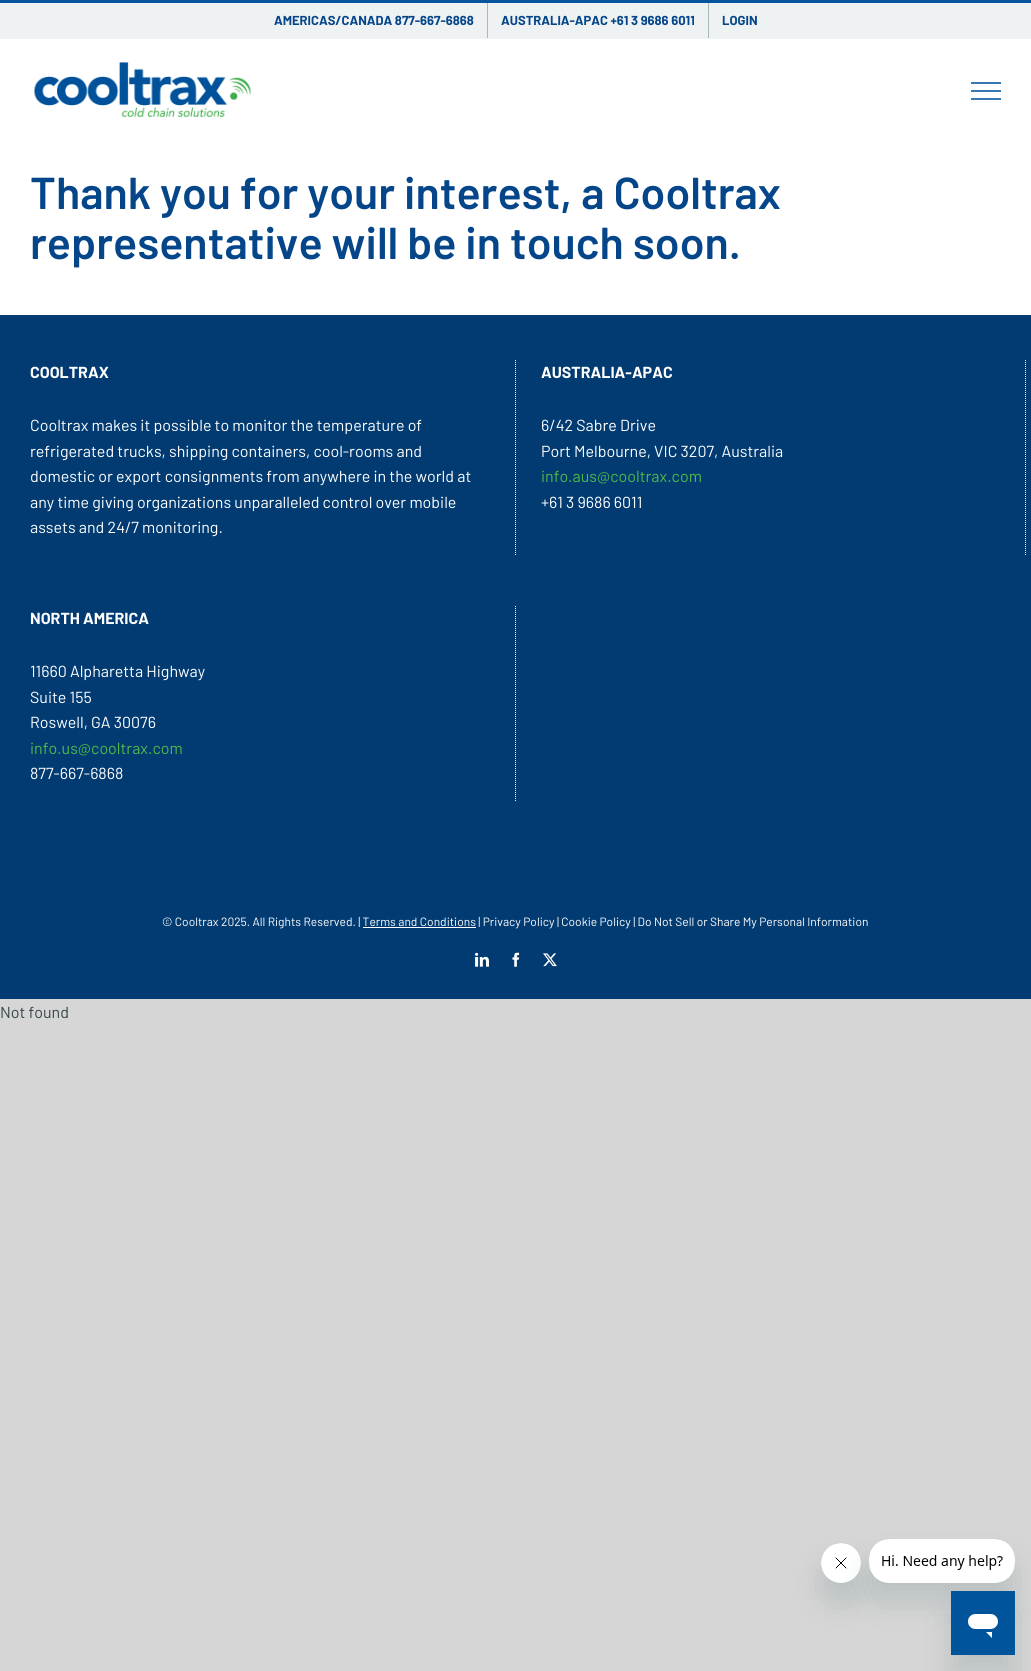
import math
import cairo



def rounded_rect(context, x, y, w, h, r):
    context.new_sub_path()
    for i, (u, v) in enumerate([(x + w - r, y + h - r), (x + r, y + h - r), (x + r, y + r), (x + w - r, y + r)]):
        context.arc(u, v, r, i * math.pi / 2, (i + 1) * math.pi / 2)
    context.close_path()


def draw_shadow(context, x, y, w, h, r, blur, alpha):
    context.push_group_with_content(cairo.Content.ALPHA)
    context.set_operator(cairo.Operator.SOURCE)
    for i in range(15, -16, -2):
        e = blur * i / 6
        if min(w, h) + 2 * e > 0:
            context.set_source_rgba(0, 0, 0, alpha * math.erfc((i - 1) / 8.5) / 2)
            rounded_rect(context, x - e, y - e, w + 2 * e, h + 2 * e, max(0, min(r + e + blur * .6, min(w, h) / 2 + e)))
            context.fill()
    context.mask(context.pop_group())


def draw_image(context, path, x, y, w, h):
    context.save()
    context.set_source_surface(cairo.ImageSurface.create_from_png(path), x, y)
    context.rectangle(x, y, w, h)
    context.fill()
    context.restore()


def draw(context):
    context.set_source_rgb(215 / 255, 214 / 255, 214 / 255)
    context.paint()
    context.set_source_rgb(1, 1, 1)
    context.rectangle(0, 39, 1031, 276)
    context.fill()
    context.set_source_rgb(239 / 255, 242 / 255, 243 / 255)
    context.rectangle(0, 3, 1031, 36)
    context.fill()
    context.set_source_rgb(6 / 255, 84 / 255, 158 / 255)
    context.rectangle(0, 0, 1031, 3)
    context.fill()
    context.set_source_rgb(168 / 255, 184 / 255, 191 / 255)
    context.rectangle(487, 3, 1, 35)
    context.fill()
    context.rectangle(708, 3, 1, 35)
    context.fill()
    draw_image(context, "images/1.png", 34, 62, 217, 55)
    context.set_source_rgb(56 / 255, 118 / 255, 177 / 255)
    context.rectangle(971, 82, 30, 2)
    context.fill()
    context.rectangle(971, 90, 30, 2)
    context.fill()
    context.rectangle(971, 98, 30, 2)
    context.fill()
    context.set_source_rgb(1 / 255, 59 / 255, 114 / 255)
    context.rectangle(0, 315, 1031, 684)
    context.fill()
    context.new_path()
    context.move_to(515.5, 360)
    context.line_to(515.5, 556)
    context.set_source_rgb(1, 1, 1)
    context.set_line_width(1)
    context.set_dash([1, 1])
    context.stroke()
    context.new_path()
    context.move_to(1025.5, 360)
    context.line_to(1025.5, 556)
    context.stroke()
    context.new_path()
    context.move_to(515.5, 606)
    context.line_to(515.5, 802)
    context.stroke()
    context.rectangle(363, 927, 113, 1)
    context.fill()
    draw_image(context, "images/2.png", 475, 952, 14, 15)
    draw_image(context, "images/3.png", 512, 952, 8, 15)
    draw_image(context, "images/4.png", 543, 953, 14, 14)
    context.set_source_rgb(23 / 255, 73 / 255, 77 / 255)
    draw_shadow(context, 821, 1563, 40, 40, 20, 15, 0.15)
    draw_image(context, "images/6.png", 821, 1543, 40, 40)
    draw_shadow(context, 869, 1559, 146, 44, 20, 15, 0.15)
    draw_image(context, "images/5.png", 869, 1539, 146, 44)
    draw_shadow(context, 951, 1611, 64, 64, 0, 15, 0.15)
    draw_image(context, "images/7.png", 951, 1591, 64, 64)
    context.select_font_face("Barlow", cairo.FontSlant.NORMAL, cairo.FontWeight.BOLD)
    context.set_font_size(13)
    context.set_source_rgb(4 / 255, 70 / 255, 137 / 255)
    context.move_to(274, 25)
    context.show_text("AMERICAS/CANADA 877-667-6868")
    context.move_to(501, 25)
    context.show_text("AUSTRALIA-APAC +61 3 9686 6011")
    context.move_to(722, 25)
    context.show_text("LOGIN")
    context.select_font_face("Barlow SemiBold")
    context.set_font_size(44.7)
    context.move_to(30, 209)
    context.show_text("Thank you for your interest, a Cooltrax")
    context.move_to(30, 259)
    context.show_text("representative will be in touch soon.")
    context.select_font_face("Barlow", cairo.FontSlant.NORMAL, cairo.FontWeight.BOLD)
    context.set_font_size(16)
    context.set_source_rgb(1, 1, 1)
    context.move_to(30, 378)
    context.show_text("COOLTRAX")
    context.select_font_face("Barlow")
    context.move_to(30, 431)
    context.show_text("Cooltrax makes it possible to monitor the temperature of")
    context.move_to(30, 457)
    context.show_text("refrigerated trucks, shipping containers, cool-rooms and")
    context.move_to(30, 482)
    context.show_text("domestic or export consignments from anywhere in the world at")
    context.move_to(30, 508)
    context.show_text("any time giving organizations unparalleled control over mobile")
    context.move_to(30, 533)
    context.show_text("assets and 24/7 monitoring.")
    context.select_font_face("Barlow", cairo.FontSlant.NORMAL, cairo.FontWeight.BOLD)
    context.move_to(541, 378)
    context.show_text("AUSTRALIA-APAC")
    context.select_font_face("Barlow")
    context.move_to(541, 431)
    context.show_text("6/42 Sabre Drive")
    context.move_to(541, 457)
    context.show_text("Port Melbourne, VIC 3207, Australia")
    context.set_source_rgb(80 / 255, 185 / 255, 72 / 255)
    context.move_to(541, 482)
    context.show_text("info.aus@cooltrax.com")
    context.set_source_rgb(1, 1, 1)
    context.move_to(541, 508)
    context.show_text("+61 3 9686 6011")
    context.select_font_face("Barlow", cairo.FontSlant.NORMAL, cairo.FontWeight.BOLD)
    context.move_to(30, 624)
    context.show_text("NORTH AMERICA")
    context.select_font_face("Barlow")
    context.move_to(30, 677)
    context.show_text("11660 Alpharetta Highway")
    context.move_to(30, 703)
    context.show_text("Suite 155")
    context.move_to(30, 728)
    context.show_text("Roswell, GA 30076")
    context.set_source_rgb(80 / 255, 185 / 255, 72 / 255)
    context.move_to(30, 754)
    context.show_text("info.us@cooltrax.com")
    context.set_source_rgb(1, 1, 1)
    context.move_to(30, 779)
    context.show_text("877-667-6868")
    context.set_font_size(12)
    context.move_to(162, 926)
    context.show_text("© Cooltrax 2025. All Rights Reserved. | Terms and Conditions | Privacy Policy | Cookie Policy | Do Not Sell or Share My Personal Information")
    context.set_font_size(16)
    context.set_source_rgb(50 / 255, 69 / 255, 73 / 255)
    context.move_to(0, 1018)
    context.show_text("Not found")


surface = cairo.ImageSurface(cairo.Format.RGB24, 1031, 1671)
context = cairo.Context(surface)
options = cairo.FontOptions()
options.set_hint_metrics(cairo.HintMetrics.OFF)
options.set_hint_style(cairo.HintStyle.NONE)
context.set_font_options(options)
context.set_miter_limit(4)
draw(context)
surface.write_to_png("out.png")
